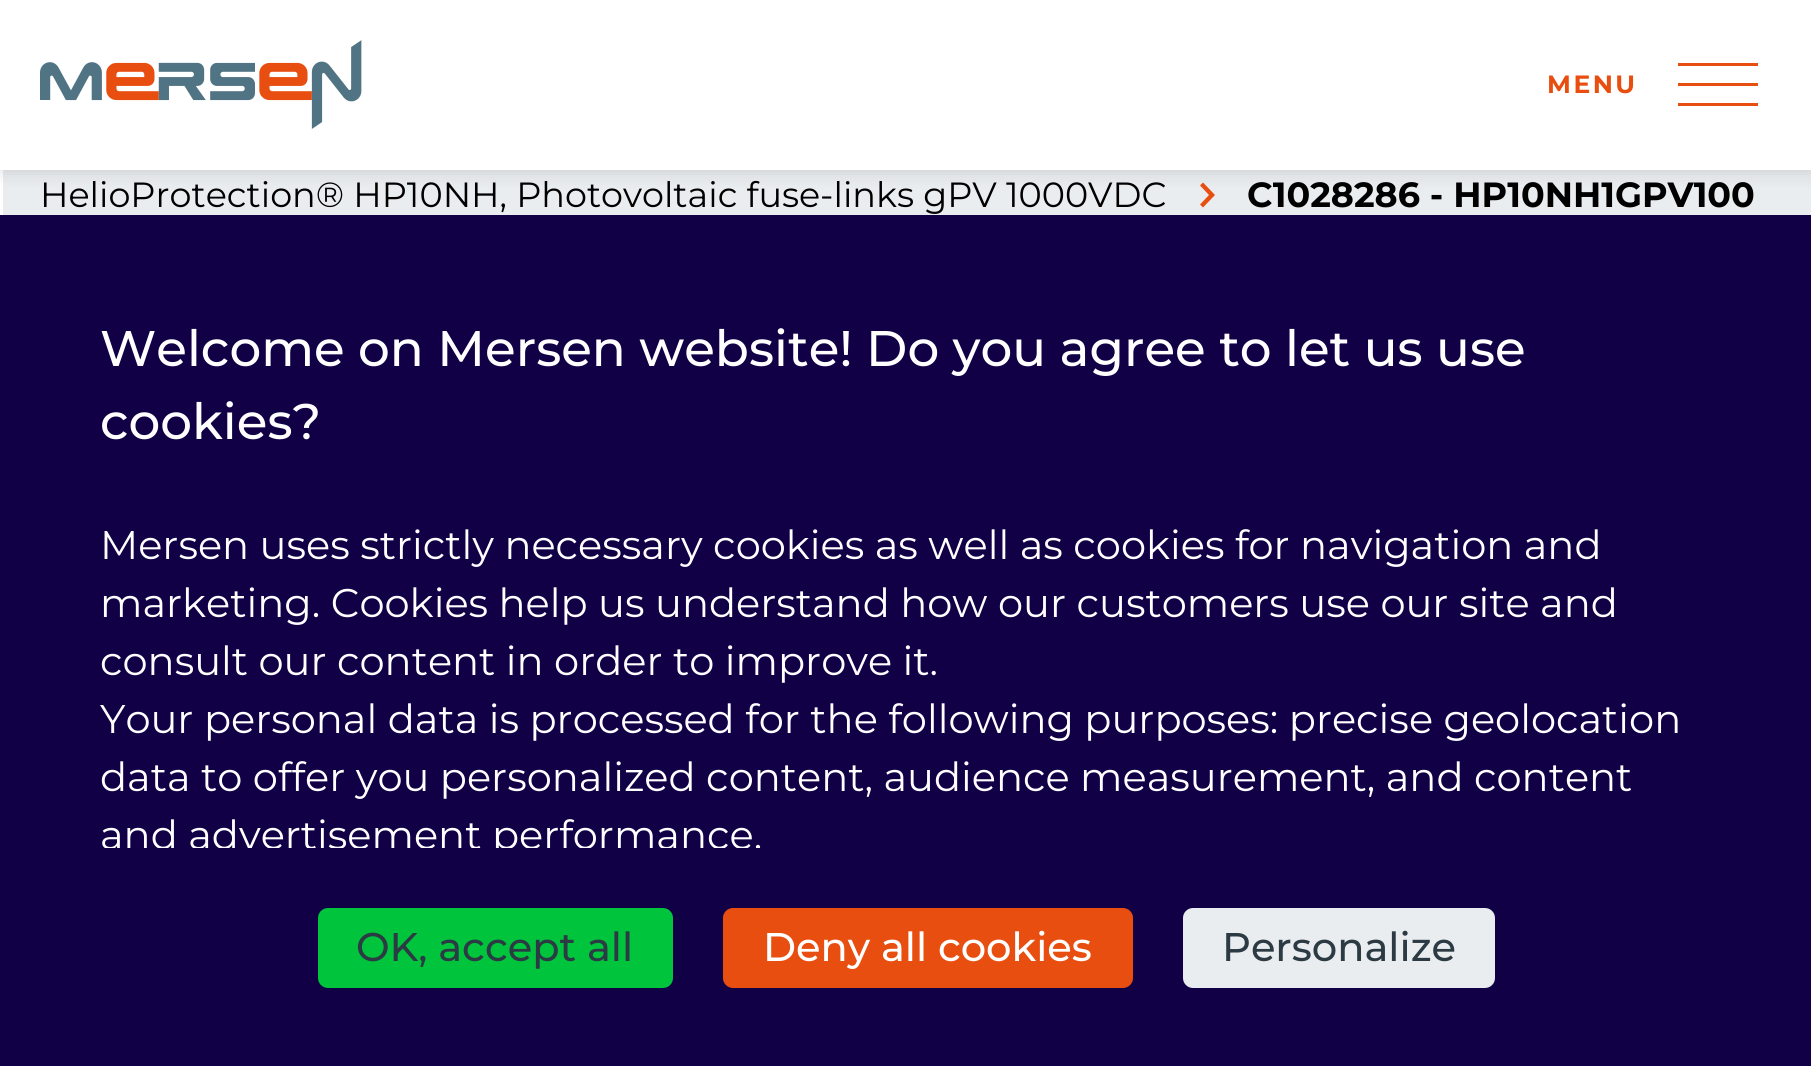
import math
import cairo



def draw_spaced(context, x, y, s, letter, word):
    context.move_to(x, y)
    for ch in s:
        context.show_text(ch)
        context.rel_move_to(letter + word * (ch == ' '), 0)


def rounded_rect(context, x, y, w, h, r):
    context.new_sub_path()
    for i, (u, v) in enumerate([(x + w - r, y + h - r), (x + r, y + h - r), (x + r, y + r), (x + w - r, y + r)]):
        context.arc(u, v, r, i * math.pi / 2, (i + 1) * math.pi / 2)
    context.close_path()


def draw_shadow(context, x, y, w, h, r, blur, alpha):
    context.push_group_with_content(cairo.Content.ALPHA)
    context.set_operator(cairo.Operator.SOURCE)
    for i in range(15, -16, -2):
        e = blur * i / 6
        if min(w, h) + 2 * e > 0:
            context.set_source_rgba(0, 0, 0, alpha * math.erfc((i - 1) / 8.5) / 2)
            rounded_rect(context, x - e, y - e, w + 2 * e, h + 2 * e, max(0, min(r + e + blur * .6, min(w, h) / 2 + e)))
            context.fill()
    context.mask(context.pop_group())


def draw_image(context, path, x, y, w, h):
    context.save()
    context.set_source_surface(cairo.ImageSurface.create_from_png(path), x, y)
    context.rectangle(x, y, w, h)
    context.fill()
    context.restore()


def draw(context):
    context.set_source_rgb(1, 1, 1)
    context.paint()
    context.set_source_rgb(234 / 255, 237 / 255, 239 / 255)
    context.rectangle(3, 170, 1808, 45)
    context.fill()
    context.set_source_rgb(232 / 255, 78 / 255, 15 / 255)
    context.new_path()
    context.move_to(1200, 185.5)
    context.line_to(1203, 182.5)
    context.line_to(1215, 195)
    context.line_to(1203, 207.5)
    context.line_to(1200, 204.5)
    context.line_to(1209, 195)
    context.close_path()
    context.fill()
    context.set_source_rgb(0, 0, 0)
    draw_shadow(context, 0, 0, 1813, 170, 0, 10, 0.15)
    context.set_source_rgb(1, 1, 1)
    context.rectangle(0, 0, 1811, 170)
    context.fill()
    draw_image(context, "images/1.png", 40, 40, 322, 89)
    context.set_source_rgb(232 / 255, 78 / 255, 15 / 255)
    context.rectangle(1678, 63, 80, 3)
    context.fill()
    context.rectangle(1678, 83, 80, 3)
    context.fill()
    context.rectangle(1678, 103, 80, 3)
    context.fill()
    context.set_source_rgb(18 / 255, 0, 71 / 255)
    context.rectangle(0, 215, 1811, 851)
    context.fill()
    context.set_source_rgb(0, 196 / 255, 60 / 255)
    rounded_rect(context, 318, 908, 355, 80, 10)
    context.fill()
    context.set_source_rgb(232 / 255, 78 / 255, 15 / 255)
    rounded_rect(context, 723, 908, 410, 80, 10)
    context.fill()
    context.set_source_rgb(234 / 255, 237 / 255, 239 / 255)
    rounded_rect(context, 1183, 908, 312, 80, 10)
    context.fill()
    context.select_font_face("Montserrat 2 Thin")
    context.set_font_size(25)
    context.set_source_rgb(232 / 255, 78 / 255, 15 / 255)
    draw_spaced(context, 1547, 93, "MENU", 2.5, 0)
    context.select_font_face("Montserrat Thin")
    context.set_font_size(35)
    context.set_source_rgb(0, 0, 0)
    context.move_to(40, 207)
    context.show_text("HelioProtection® HP10NH, Photovoltaic fuse-links gPV 1000VDC")
    context.select_font_face("Montserrat 2 Thin")
    context.move_to(1247, 207)
    context.show_text("C1028286 - HP10NH1GPV100")
    context.select_font_face("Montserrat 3 Thin")
    context.set_font_size(50)
    context.set_source_rgb(1, 1, 1)
    context.move_to(100, 366)
    context.show_text("Welcome on Mersen website! Do you agree to let us use")
    context.move_to(100, 439)
    context.show_text("cookies?")
    context.select_font_face("Montserrat Thin")
    context.set_font_size(40)
    context.move_to(100, 559)
    context.show_text("Mersen uses strictly necessary cookies as well as cookies for navigation and")
    context.move_to(100, 617)
    context.show_text("marketing. Cookies help us understand how our customers use our site and")
    context.move_to(100, 675)
    context.show_text("consult our content in order to improve it.")
    context.move_to(100, 733)
    context.show_text("Your personal data is processed for the following purposes: precise geolocation")
    context.move_to(100, 791)
    context.show_text("data to offer you personalized content, audience measurement, and content")
    context.save()
    context.rectangle(0, 315, 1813, 533)
    context.clip()
    context.move_to(100, 849)
    context.show_text("and advertisement performance.")
    context.restore()
    context.select_font_face("Montserrat 3 Thin")
    context.set_source_rgb(44 / 255, 58 / 255, 67 / 255)
    context.move_to(356, 961)
    context.show_text("OK, accept all")
    context.set_source_rgb(1, 1, 1)
    context.move_to(763, 961)
    context.show_text("Deny all cookies")
    context.set_source_rgb(44 / 255, 58 / 255, 67 / 255)
    context.move_to(1222, 961)
    context.show_text("Personalize")


surface = cairo.ImageSurface(cairo.Format.RGB24, 1811, 1066)
context = cairo.Context(surface)
options = cairo.FontOptions()
options.set_hint_metrics(cairo.HintMetrics.OFF)
options.set_hint_style(cairo.HintStyle.NONE)
context.set_font_options(options)
context.set_miter_limit(4)
draw(context)
surface.write_to_png("out.png")
